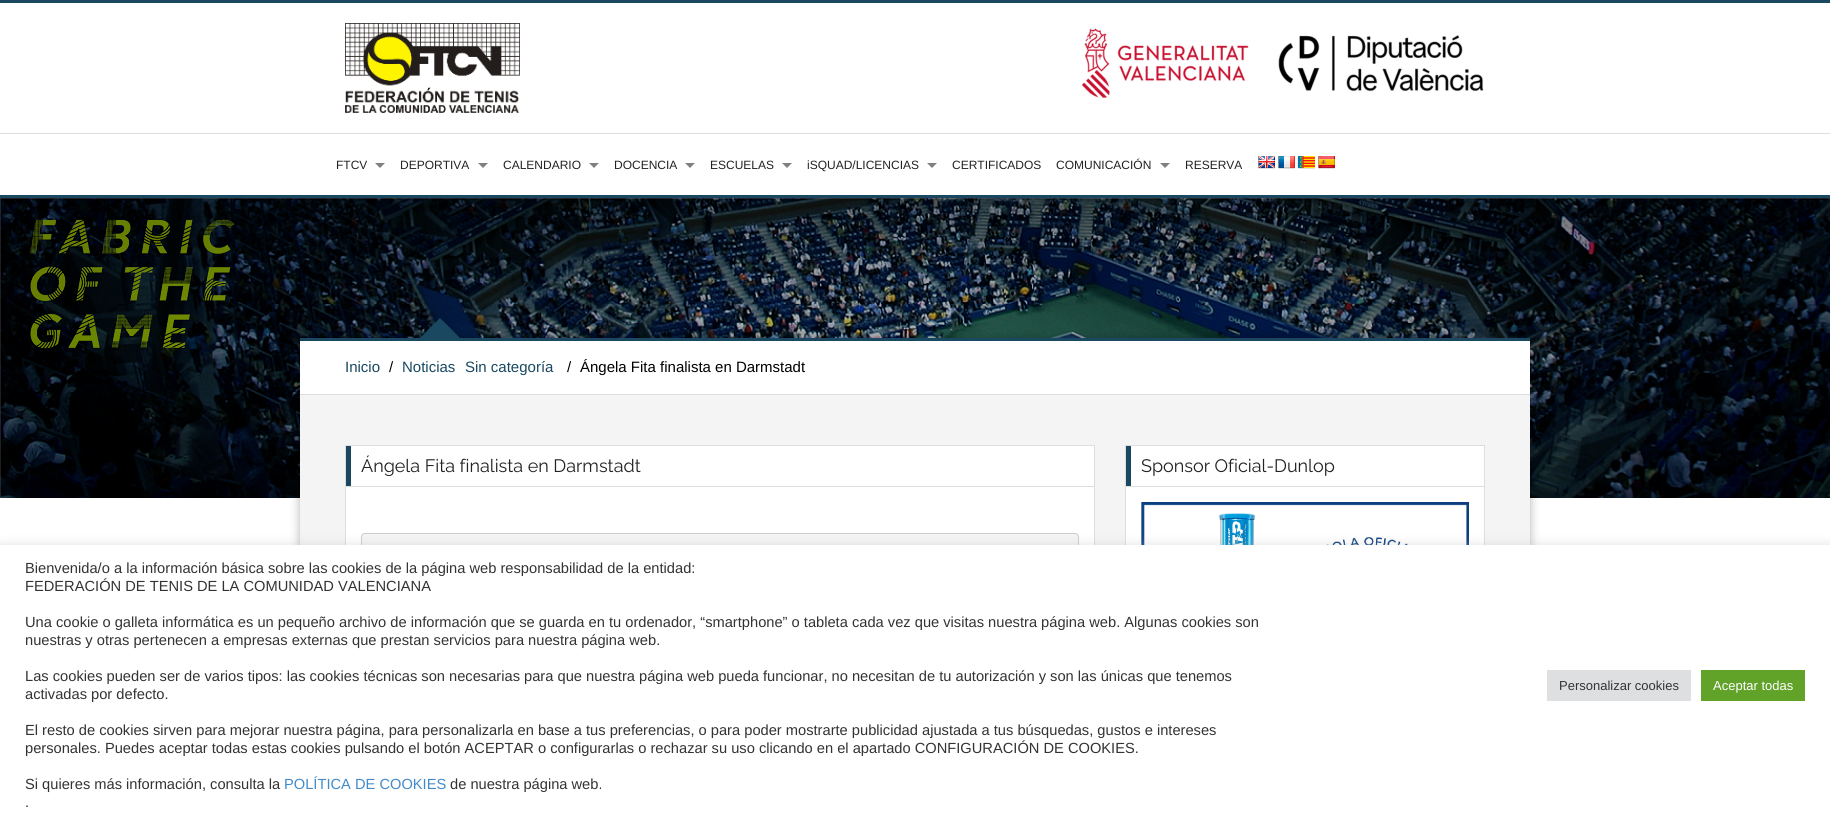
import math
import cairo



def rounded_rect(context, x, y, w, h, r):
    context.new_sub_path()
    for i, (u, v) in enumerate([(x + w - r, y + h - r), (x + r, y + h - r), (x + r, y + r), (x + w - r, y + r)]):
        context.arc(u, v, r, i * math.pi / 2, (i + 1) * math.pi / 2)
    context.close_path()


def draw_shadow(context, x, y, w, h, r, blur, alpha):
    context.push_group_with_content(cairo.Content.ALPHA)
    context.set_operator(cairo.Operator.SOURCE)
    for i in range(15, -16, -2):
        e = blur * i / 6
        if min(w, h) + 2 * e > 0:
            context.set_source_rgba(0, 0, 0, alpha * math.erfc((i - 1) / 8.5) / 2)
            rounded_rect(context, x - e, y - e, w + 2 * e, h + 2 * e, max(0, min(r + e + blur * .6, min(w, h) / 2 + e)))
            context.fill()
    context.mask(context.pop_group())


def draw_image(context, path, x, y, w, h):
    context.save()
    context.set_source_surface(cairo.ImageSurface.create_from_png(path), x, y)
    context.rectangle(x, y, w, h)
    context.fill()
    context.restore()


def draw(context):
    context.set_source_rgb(1, 1, 1)
    context.paint()
    context.set_source_rgb(25 / 255, 72 / 255, 96 / 255)
    context.rectangle(0, 0, 1830, 3)
    context.fill()
    draw_image(context, "images/1.png", 345, 23, 175, 90)
    draw_image(context, "images/2.png", 1081, 28, 403, 70)
    context.set_source_rgb(222 / 255, 222 / 255, 222 / 255)
    context.rectangle(0, 133, 1830, 1)
    context.fill()
    context.set_source_rgb(25 / 255, 72 / 255, 96 / 255)
    context.rectangle(0, 195, 1830, 3)
    context.fill()
    context.set_source_rgb(128 / 255, 128 / 255, 128 / 255)
    context.new_path()
    context.move_to(375, 163)
    context.line_to(385, 163)
    context.line_to(380, 168)
    context.close_path()
    context.fill()
    context.new_path()
    context.move_to(478, 163)
    context.line_to(488, 163)
    context.line_to(483, 168)
    context.close_path()
    context.fill()
    context.new_path()
    context.move_to(589, 163)
    context.line_to(599, 163)
    context.line_to(594, 168)
    context.close_path()
    context.fill()
    context.new_path()
    context.move_to(685, 163)
    context.line_to(695, 163)
    context.line_to(690, 168)
    context.close_path()
    context.fill()
    context.new_path()
    context.move_to(782, 163)
    context.line_to(792, 163)
    context.line_to(787, 168)
    context.close_path()
    context.fill()
    context.new_path()
    context.move_to(927, 163)
    context.line_to(937, 163)
    context.line_to(932, 168)
    context.close_path()
    context.fill()
    context.new_path()
    context.move_to(1160, 163)
    context.line_to(1170, 163)
    context.line_to(1165, 168)
    context.close_path()
    context.fill()
    draw_image(context, "images/3.png", 1258, 156, 17, 13)
    draw_image(context, "images/4.png", 1278, 156, 17, 13)
    draw_image(context, "images/5.png", 1297, 156, 18, 13)
    draw_image(context, "images/6.png", 1318, 156, 17, 13)
    draw_image(context, "images/7.png", 0, 198, 1830, 300)
    context.set_source_rgb(0, 0, 0)
    draw_shadow(context, 300, 339, 1230, 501, 0, 5, 0.3)
    context.set_source_rgb(244 / 255, 244 / 255, 244 / 255)
    context.rectangle(300, 395, 1230, 150)
    context.fill()
    context.set_source_rgb(1, 1, 1)
    context.rectangle(300, 341, 1230, 53)
    context.fill()
    context.set_source_rgb(25 / 255, 72 / 255, 96 / 255)
    context.rectangle(300, 338, 1230, 3)
    context.fill()
    context.set_source_rgb(222 / 255, 222 / 255, 222 / 255)
    context.rectangle(300, 394, 1230, 1)
    context.fill()
    context.set_source_rgb(25 / 255, 72 / 255, 96 / 255)
    context.new_path()
    context.move_to(460, 338)
    context.line_to(420, 338)
    context.line_to(440, 318)
    context.close_path()
    context.fill()
    context.set_source_rgb(1, 1, 1)
    context.rectangle(346, 446, 748, 99)
    context.fill()
    context.set_source_rgb(222 / 255, 222 / 255, 222 / 255)
    context.rectangle(345, 445, 750, 1)
    context.fill()
    context.rectangle(1094, 445, 1, 100)
    context.fill()
    context.rectangle(345, 445, 1, 100)
    context.fill()
    context.set_source_rgb(221 / 255, 221 / 255, 221 / 255)
    context.rectangle(346, 486, 748, 1)
    context.fill()
    context.set_source_rgb(25 / 255, 72 / 255, 96 / 255)
    context.rectangle(346, 446, 5, 40)
    context.fill()
    context.set_source_rgb(245 / 255, 245 / 255, 245 / 255)
    rounded_rect(context, 361.5, 533.5, 717, 38, 3.5)
    context.fill_preserve()
    context.set_source_rgb(204 / 255, 204 / 255, 204 / 255)
    context.set_line_width(1)
    context.stroke()
    context.set_source_rgb(1, 1, 1)
    context.rectangle(1126, 446, 358, 99)
    context.fill()
    context.set_source_rgb(222 / 255, 222 / 255, 222 / 255)
    context.rectangle(1125, 445, 360, 1)
    context.fill()
    context.rectangle(1484, 445, 1, 100)
    context.fill()
    context.rectangle(1125, 445, 1, 100)
    context.fill()
    context.set_source_rgb(221 / 255, 221 / 255, 221 / 255)
    context.rectangle(1126, 486, 358, 1)
    context.fill()
    context.set_source_rgb(25 / 255, 72 / 255, 96 / 255)
    context.rectangle(1126, 446, 5, 40)
    context.fill()
    draw_image(context, "images/8.png", 1141, 502, 328, 43)
    context.set_source_rgb(172 / 255, 171 / 255, 171 / 255)
    draw_shadow(context, 0, 544, 1830, 280, 0, 5, 0.3)
    context.set_source_rgb(1, 1, 1)
    context.rectangle(0, 545, 1830, 280)
    context.fill()
    context.set_source_rgb(222 / 255, 223 / 255, 224 / 255)
    context.rectangle(1547, 670, 144, 31)
    context.fill()
    context.set_source_rgb(97 / 255, 162 / 255, 41 / 255)
    context.rectangle(1701, 670, 104, 31)
    context.fill()
    context.select_font_face("Liberation Sans")
    context.set_font_size(12)
    context.set_source_rgb(34 / 255, 34 / 255, 34 / 255)
    context.move_to(336, 169)
    context.show_text("FTCV")
    context.move_to(400, 169)
    context.show_text("DEPORTIVA")
    context.move_to(503, 169)
    context.show_text("CALENDARIO")
    context.move_to(614, 169)
    context.show_text("DOCENCIA")
    context.move_to(710, 169)
    context.show_text("ESCUELAS")
    context.move_to(807, 169)
    context.show_text("iSQUAD/LICENCIAS")
    context.move_to(952, 169)
    context.show_text("CERTIFICADOS")
    context.move_to(1056, 169)
    context.show_text("COMUNICACIÓN")
    context.move_to(1185, 169)
    context.show_text("RESERVA")
    context.set_font_size(15)
    context.set_source_rgb(25 / 255, 72 / 255, 96 / 255)
    context.move_to(345, 372)
    context.show_text("Inicio")
    context.set_source_rgb(0, 0, 0)
    context.move_to(389, 372)
    context.show_text("/")
    context.set_source_rgb(25 / 255, 72 / 255, 96 / 255)
    context.move_to(402, 372)
    context.show_text("Noticias")
    context.move_to(465, 372)
    context.show_text("Sin categoría")
    context.set_source_rgb(0, 0, 0)
    context.move_to(567, 372)
    context.show_text("/")
    context.move_to(580, 372)
    context.show_text("Ángela Fita finalista en Darmstadt")
    context.select_font_face("Raleway Thin")
    context.set_font_size(18)
    context.set_source_rgb(34 / 255, 34 / 255, 34 / 255)
    context.move_to(361, 472)
    context.show_text("Ángela Fita finalista en Darmstadt")
    context.move_to(1141, 472)
    context.show_text("Sponsor Oficial-Dunlop")
    context.select_font_face("Liberation Sans")
    context.set_font_size(14.67)
    context.set_source_rgb(51 / 255, 51 / 255, 51 / 255)
    context.move_to(25, 573)
    context.show_text("Bienvenida/o a la información básica sobre las cookies de la página web responsabilidad de la entidad:")
    context.move_to(25, 591)
    context.show_text("FEDERACIÓN DE TENIS DE LA COMUNIDAD VALENCIANA")
    context.move_to(25, 627)
    context.show_text("Una cookie o galleta informática es un pequeño archivo de información que se guarda en tu ordenador, “smartphone” o tableta cada vez que visitas nuestra página web. Algunas cookies son")
    context.move_to(25, 645)
    context.show_text("nuestras y otras pertenecen a empresas externas que prestan servicios para nuestra página web.")
    context.move_to(25, 681)
    context.show_text("Las cookies pueden ser de varios tipos: las cookies técnicas son necesarias para que nuestra página web pueda funcionar, no necesitan de tu autorización y son las únicas que tenemos")
    context.move_to(25, 699)
    context.show_text("activadas por defecto.")
    context.move_to(25, 735)
    context.show_text("El resto de cookies sirven para mejorar nuestra página, para personalizarla en base a tus preferencias, o para poder mostrarte publicidad ajustada a tus búsquedas, gustos e intereses")
    context.move_to(25, 753)
    context.show_text("personales. Puedes aceptar todas estas cookies pulsando el botón ACEPTAR o configurarlas o rechazar su uso clicando en el apartado CONFIGURACIÓN DE COOKIES.")
    context.move_to(25, 789)
    context.show_text("Si quieres más información, consulta la")
    context.set_source_rgb(66 / 255, 139 / 255, 202 / 255)
    context.move_to(284, 789)
    context.show_text("POLÍTICA DE COOKIES")
    context.set_source_rgb(51 / 255, 51 / 255, 51 / 255)
    context.move_to(450, 789)
    context.show_text("de nuestra página web.")
    context.move_to(25, 807)
    context.show_text(".")
    context.set_font_size(13)
    context.move_to(1559, 690)
    context.show_text("Personalizar cookies")
    context.set_source_rgb(1, 1, 1)
    context.move_to(1713, 690)
    context.show_text("Aceptar todas")


surface = cairo.ImageSurface(cairo.Format.RGB24, 1830, 825)
context = cairo.Context(surface)
options = cairo.FontOptions()
options.set_hint_metrics(cairo.HintMetrics.OFF)
options.set_hint_style(cairo.HintStyle.NONE)
context.set_font_options(options)
context.set_miter_limit(4)
draw(context)
surface.write_to_png("out.png")
